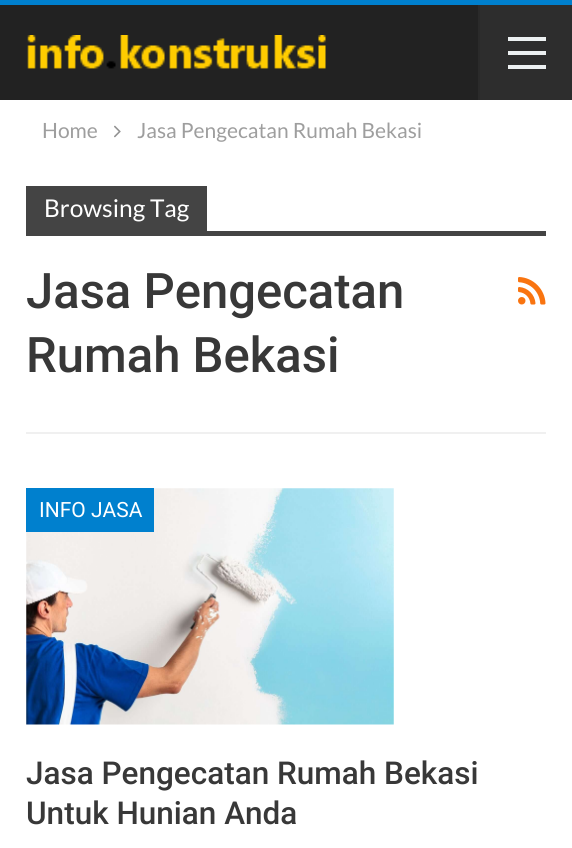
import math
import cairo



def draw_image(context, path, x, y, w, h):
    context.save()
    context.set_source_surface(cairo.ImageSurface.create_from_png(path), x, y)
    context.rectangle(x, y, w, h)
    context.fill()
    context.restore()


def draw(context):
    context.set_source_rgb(0, 128 / 255, 206 / 255)
    context.paint()
    context.set_source_rgb(1, 1, 1)
    context.rectangle(0, 100, 572, 748)
    context.fill()
    context.set_source_rgb(34 / 255, 34 / 255, 34 / 255)
    context.rectangle(0, 5, 478, 95)
    context.fill()
    draw_image(context, "images/1.png", 27, 35, 299, 34)
    context.set_source_rgb(45 / 255, 45 / 255, 45 / 255)
    context.rectangle(480, 5, 92, 95)
    context.fill()
    context.set_source_rgb(42 / 255, 42 / 255, 42 / 255)
    context.rectangle(478, 5, 2, 95)
    context.fill()
    context.set_source_rgb(236 / 255, 240 / 255, 241 / 255)
    context.rectangle(508, 51, 38, 4)
    context.fill()
    context.rectangle(508, 37, 38, 4)
    context.fill()
    context.rectangle(508, 65, 38, 4)
    context.fill()
    draw_image(context, "images/2.png", 114, 125, 7, 13)
    context.set_source_rgb(240 / 255, 240 / 255, 240 / 255)
    context.rectangle(26, 432, 520, 2)
    context.fill()
    context.set_source_rgb(68 / 255, 68 / 255, 68 / 255)
    context.rectangle(26, 186, 181, 45)
    context.fill()
    context.rectangle(26, 231, 520, 5)
    context.fill()
    draw_image(context, "images/3.png", 518, 277, 28, 28)
    draw_image(context, "images/4.png", 26, 488, 368, 237)
    context.set_source_rgb(0, 128 / 255, 206 / 255)
    context.rectangle(26, 488, 128, 44)
    context.fill()
    context.select_font_face("Lato")
    context.set_font_size(21)
    context.set_source_rgb(158 / 255, 158 / 255, 158 / 255)
    context.move_to(42, 138)
    context.show_text("Home")
    context.move_to(137, 138)
    context.show_text("Jasa Pengecatan Rumah Bekasi")
    context.set_font_size(24.5)
    context.set_source_rgb(1, 1, 1)
    context.move_to(44, 217)
    context.show_text("Browsing Tag")
    context.select_font_face("Roboto Medium")
    context.set_font_size(49)
    context.set_source_rgb(56 / 255, 56 / 255, 56 / 255)
    context.move_to(26, 308)
    context.show_text("Jasa Pengecatan")
    context.move_to(26, 372)
    context.show_text("Rumah Bekasi")
    context.select_font_face("Roboto")
    context.set_font_size(21)
    context.set_source_rgb(1, 1, 1)
    context.move_to(39, 517)
    context.show_text("INFO JASA")
    context.select_font_face("Roboto Medium")
    context.set_font_size(31.5)
    context.set_source_rgb(56 / 255, 56 / 255, 56 / 255)
    context.move_to(26, 784)
    context.show_text("Jasa Pengecatan Rumah Bekasi")
    context.move_to(26, 824)
    context.show_text("Untuk Hunian Anda")


surface = cairo.ImageSurface(cairo.Format.RGB24, 572, 848)
context = cairo.Context(surface)
options = cairo.FontOptions()
options.set_hint_metrics(cairo.HintMetrics.OFF)
options.set_hint_style(cairo.HintStyle.NONE)
context.set_font_options(options)
context.set_miter_limit(4)
draw(context)
surface.write_to_png("out.png")
